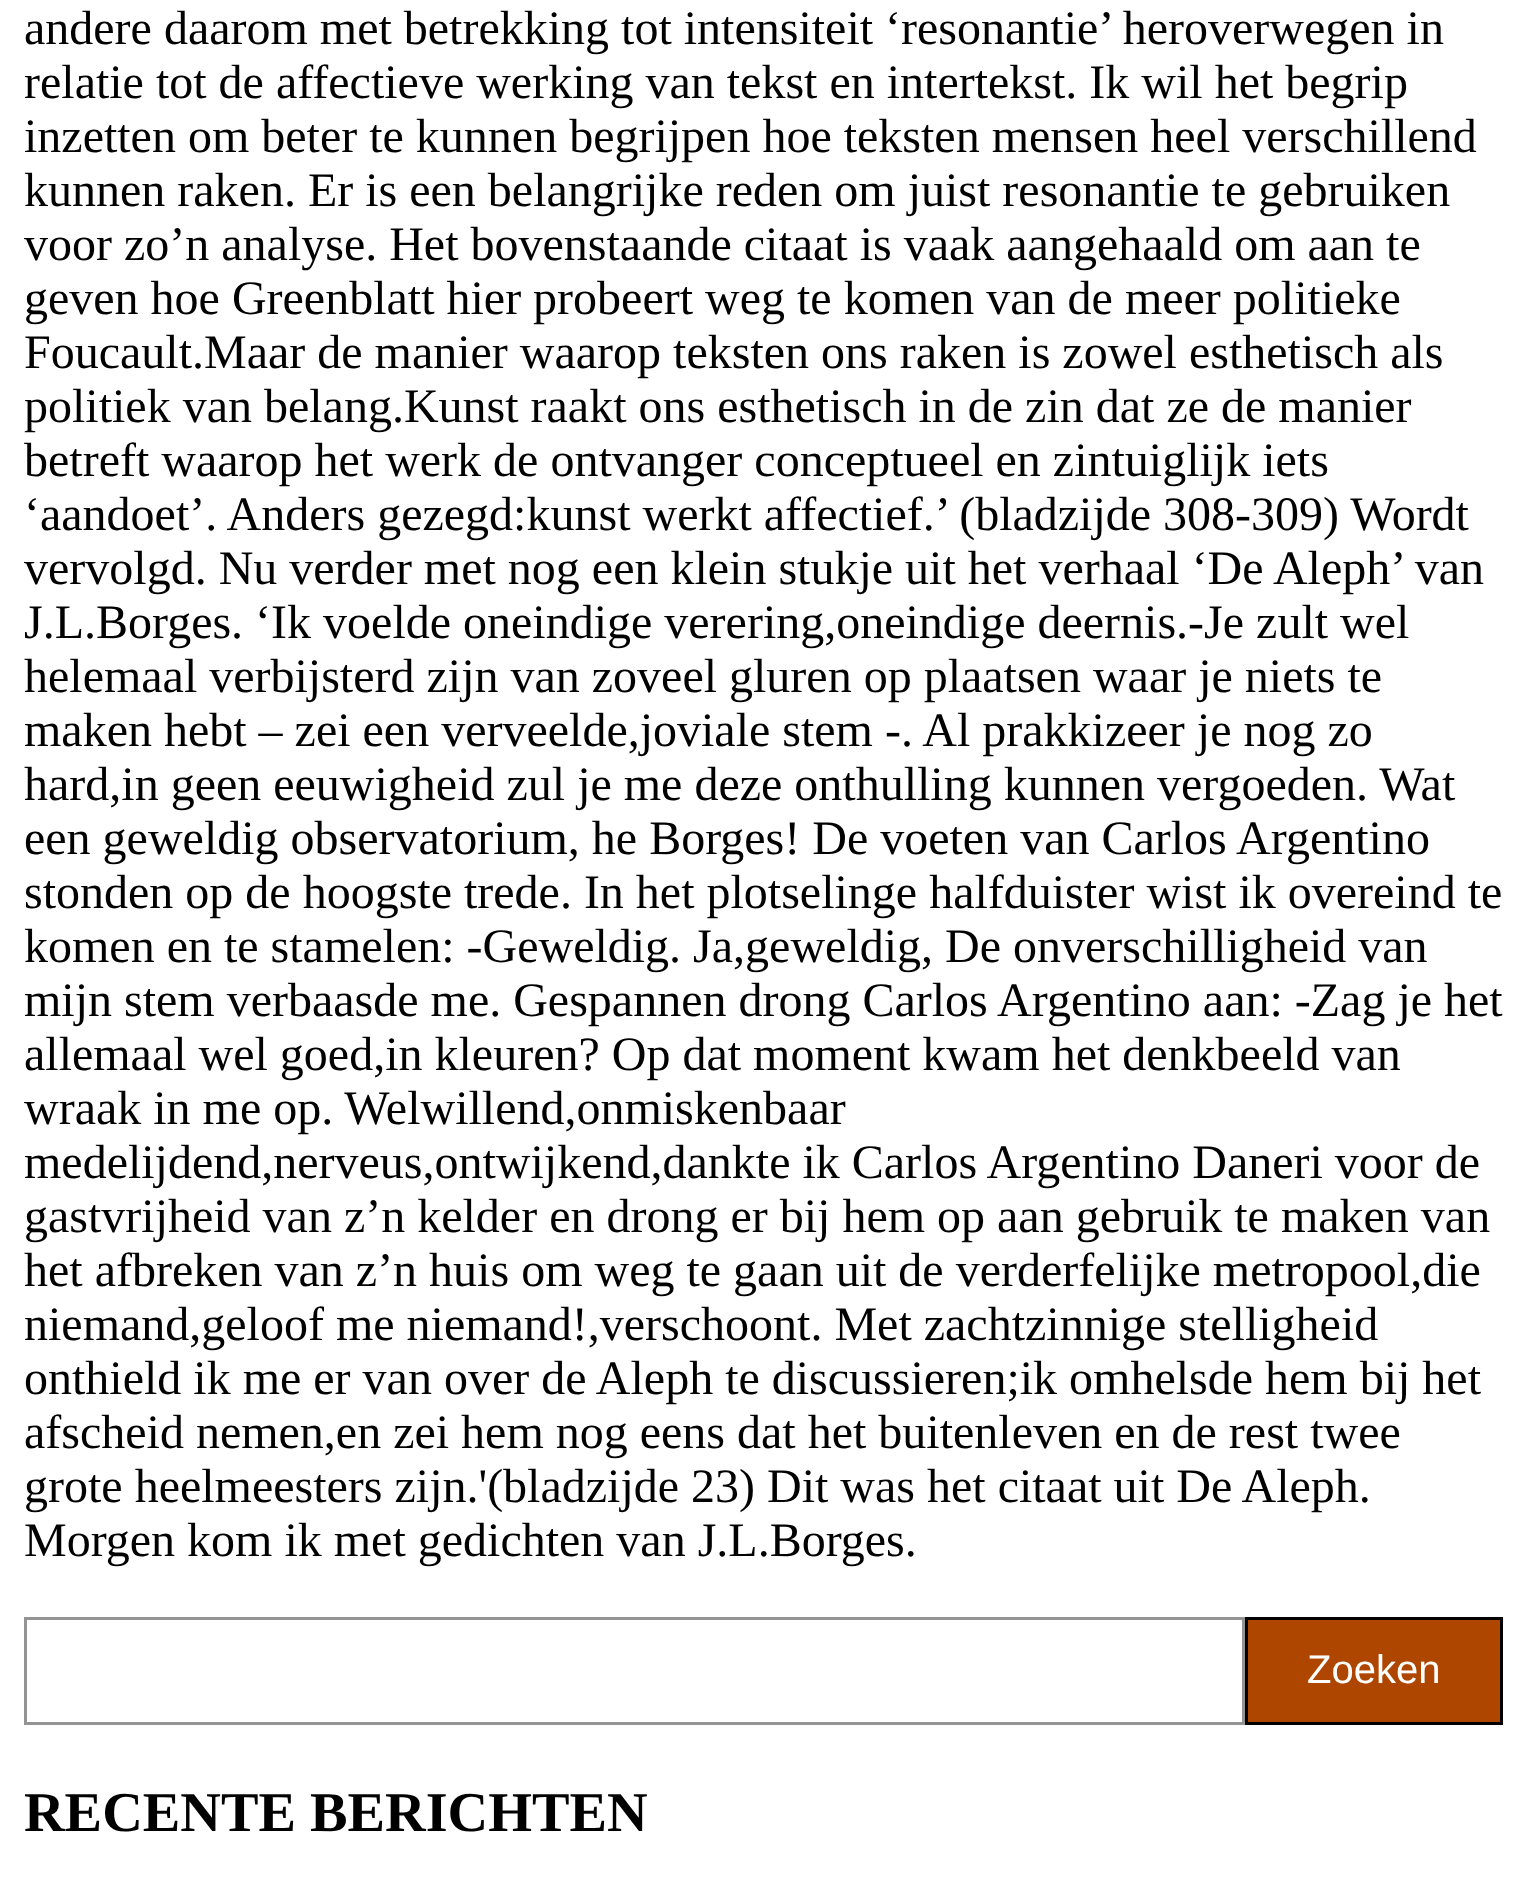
<svg xmlns="http://www.w3.org/2000/svg" width="1527" height="1893" viewBox="0 0 1527 1893">
  <style>
    .t1 { font: 48px Liberation Serif; fill: #000; }
    .t2 { font: 40px Liberation Sans; fill: #fff; }
    .t3 { font: bold 56.25px Liberation Serif; fill: #000; }
  </style>
  <rect width="100%" height="100%" fill="#fff"/>
  <text x="24" y="44" class="t1">andere daarom met betrekking tot intensiteit ‘resonantie’ heroverwegen in</text>
  <text x="24" y="98" class="t1">relatie tot de affectieve werking van tekst en intertekst. Ik wil het begrip</text>
  <text x="24" y="152" class="t1">inzetten om beter te kunnen begrijpen hoe teksten mensen heel verschillend</text>
  <text x="24" y="206" class="t1">kunnen raken. Er is een belangrijke reden om juist resonantie te gebruiken</text>
  <text x="24" y="260" class="t1">voor zo’n analyse. Het bovenstaande citaat is vaak aangehaald om aan te</text>
  <text x="24" y="314" class="t1">geven hoe Greenblatt hier probeert weg te komen van de meer politieke</text>
  <text x="24" y="368" class="t1">Foucault.Maar de manier waarop teksten ons raken is zowel esthetisch als</text>
  <text x="24" y="422" class="t1">politiek van belang.Kunst raakt ons esthetisch in de zin dat ze de manier</text>
  <text x="24" y="476" class="t1">betreft waarop het werk de ontvanger conceptueel en zintuiglijk iets</text>
  <text x="24" y="530" class="t1">‘aandoet’. Anders gezegd:kunst werkt affectief.’ (bladzijde 308-309) Wordt</text>
  <text x="24" y="584" class="t1">vervolgd. Nu verder met nog een klein stukje uit het verhaal ‘De Aleph’ van</text>
  <text x="24" y="638" class="t1">J.L.Borges. ‘Ik voelde oneindige verering,oneindige deernis.-Je zult wel</text>
  <text x="24" y="692" class="t1">helemaal verbijsterd zijn van zoveel gluren op plaatsen waar je niets te</text>
  <text x="24" y="746" class="t1">maken hebt – zei een verveelde,joviale stem -. Al prakkizeer je nog zo</text>
  <text x="24" y="800" class="t1">hard,in geen eeuwigheid zul je me deze onthulling kunnen vergoeden. Wat</text>
  <text x="24" y="854" class="t1">een geweldig observatorium, he Borges! De voeten van Carlos Argentino</text>
  <text x="24" y="908" class="t1">stonden op de hoogste trede. In het plotselinge halfduister wist ik overeind te</text>
  <text x="24" y="962" class="t1">komen en te stamelen: -Geweldig. Ja,geweldig, De onverschilligheid van</text>
  <text x="24" y="1016" class="t1">mijn stem verbaasde me. Gespannen drong Carlos Argentino aan: -Zag je het</text>
  <text x="24" y="1070" class="t1">allemaal wel goed,in kleuren? Op dat moment kwam het denkbeeld van</text>
  <text x="24" y="1124" class="t1">wraak in me op. Welwillend,onmiskenbaar</text>
  <text x="24" y="1178" class="t1">medelijdend,nerveus,ontwijkend,dankte ik Carlos Argentino Daneri voor de</text>
  <text x="24" y="1232" class="t1">gastvrijheid van z’n kelder en drong er bij hem op aan gebruik te maken van</text>
  <text x="24" y="1286" class="t1">het afbreken van z’n huis om weg te gaan uit de verderfelijke metropool,die</text>
  <text x="24" y="1340" class="t1">niemand,geloof me niemand!,verschoont. Met zachtzinnige stelligheid</text>
  <text x="24" y="1394" class="t1">onthield ik me er van over de Aleph te discussieren;ik omhelsde hem bij het</text>
  <text x="24" y="1448" class="t1">afscheid nemen,en zei hem nog eens dat het buitenleven en de rest twee</text>
  <text x="24" y="1502" class="t1">grote heelmeesters zijn.'(bladzijde 23) Dit was het citaat uit De Aleph.</text>
  <text x="24" y="1556" class="t1">Morgen kom ik met gedichten van J.L.Borges.</text>
  <rect x="25.5" y="1618.5" width="1218" height="105" fill="none" stroke="#949494" stroke-width="3"/>
  <rect x="1246.5" y="1618.5" width="255" height="105" fill="#ae4600" stroke="#000" stroke-width="3"/>
  <text x="1307" y="1683" class="t2">Zoeken</text>
  <text x="24" y="1831" class="t3">RECENTE BERICHTEN</text>
</svg>
